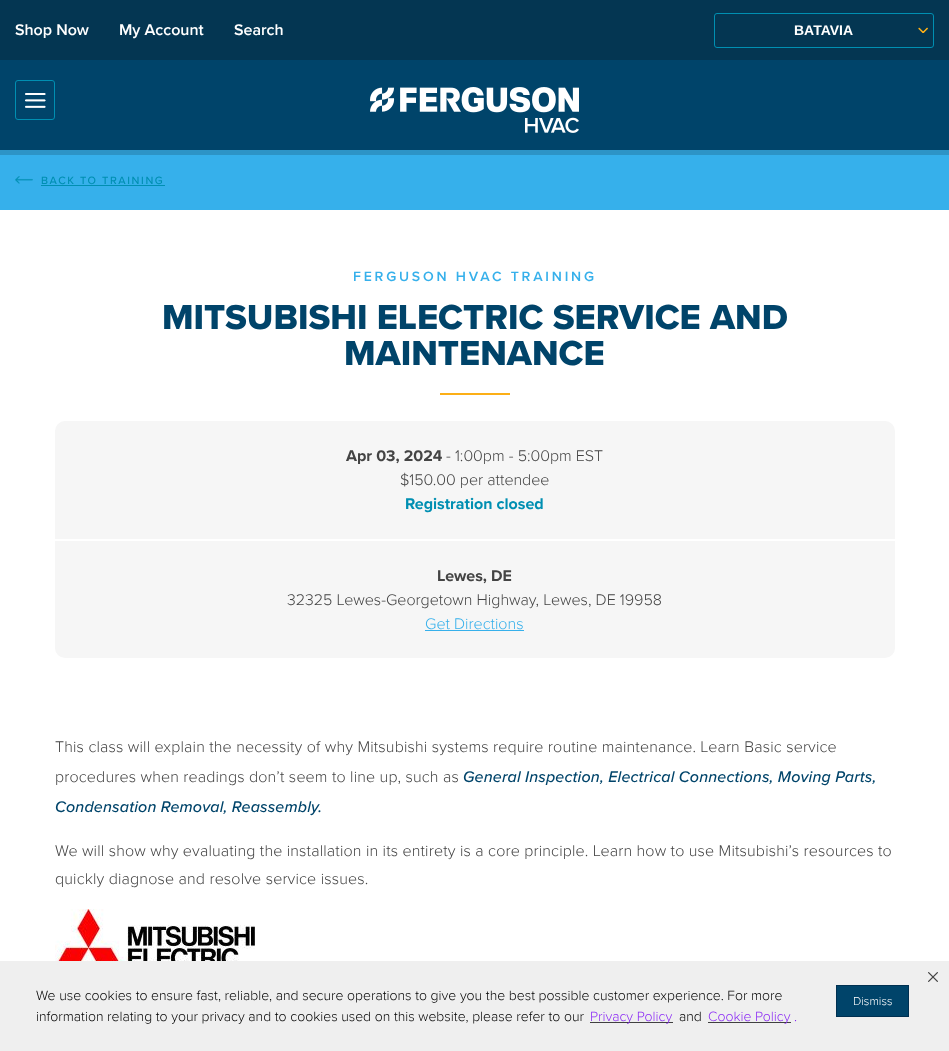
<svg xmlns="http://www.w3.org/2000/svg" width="949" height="1051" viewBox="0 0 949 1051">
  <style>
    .t1 { font: 600 16px Proxima Nova; fill: #fff; }
    .t2 { font: bold 14px Liberation Sans; fill: #fff; }
    .t3 { font: 500 11px Proxima Nova; letter-spacing: 1.6px; fill: #008fb2; }
    .t4 { font: 600 14px Proxima Nova; letter-spacing: 2.8px; fill: #36b0eb; }
    .t5 { font: 800 36px Proxima Nova; fill: #00446a; }
    .t6 { font: bold 16px Proxima Nova; fill: #444; }
    .t7 { font: 300 16px Proxima Nova; fill: #444; }
    .t8 { font: bold 16px Proxima Nova; fill: #008fb2; }
    .t9 { font: 300 16px Proxima Nova; fill: #36b0eb; }
    .t10 { font: 300 16px Proxima Nova; letter-spacing: 0.16px; fill: #444; }
    .t11 { font: italic 500 16px Proxima Nova; letter-spacing: 0.16px; fill: #00446a; }
    .t12 { font: 300 14px Proxima Nova; fill: #000; }
    .t13 { font: 300 14px Proxima Nova; fill: #8b2af5; }
    .t14 { font: 300 12px Proxima Nova; fill: #fff; }
  </style>
  <rect width="100%" height="100%" fill="#fff"/>
  <rect x="0" y="150" width="949" height="5" fill="#2d94c6"/>
  <rect x="0" y="60" width="949" height="90" fill="#00446a"/>
  <rect x="0" y="0" width="949" height="60" fill="#043652"/>
  <text x="15" y="35" class="t1">Shop Now</text>
  <text x="119" y="35" class="t1">My Account</text>
  <text x="234" y="35" class="t1">Search</text>
  <rect x="15.5" y="80.5" width="39" height="39" rx="2.5" fill="none" stroke="#008fb2"/>
  <image x="25" y="93" width="21" height="15" href="images/1.png"/>
  <image x="370" y="87" width="209" height="46" href="images/2.png"/>
  <rect x="714.5" y="13.5" width="219" height="34" rx="2.5" fill="none" stroke="#008fb2"/>
  <text x="794" y="35" class="t2">BATAVIA</text>
  <image x="918" y="27" width="10" height="6" href="images/3.png"/>
  <rect x="0" y="155" width="949" height="55" fill="#36b0eb"/>
  <image x="15" y="176" width="18" height="8" href="images/4.png"/>
  <text x="41" y="184" class="t3">BACK TO TRAINING</text>
  <rect x="41" y="185" width="124" height="1" fill="#008fb2"/>
  <text x="353" y="281" class="t4">FERGUSON HVAC TRAINING</text>
  <text x="162" y="329" class="t5">MITSUBISHI ELECTRIC SERVICE AND</text>
  <text x="344" y="365" class="t5">MAINTENANCE</text>
  <rect x="440" y="393" width="70" height="2" fill="#fcaf17"/>
  <rect x="55" y="421" width="840" height="237" rx="10" fill="#f6f6f6"/>
  <rect x="55" y="539" width="840" height="2" fill="#fff"/>
  <text x="346" y="461" class="t6">Apr 03, 2024</text>
  <text x="446" y="461" class="t7">- 1:00pm - 5:00pm EST</text>
  <text x="400" y="485" class="t7">$150.00 per attendee</text>
  <text x="405" y="509" class="t8">Registration closed</text>
  <text x="437" y="581" class="t6">Lewes, DE</text>
  <text x="287" y="605" class="t7">32325 Lewes-Georgetown Highway, Lewes, DE 19958</text>
  <text x="425" y="629" class="t9">Get Directions</text>
  <rect x="425" y="630" width="99" height="1" fill="#36b0eb"/>
  <text x="55" y="752" class="t10">This class will explain the necessity of why Mitsubishi systems require routine maintenance. Learn Basic service</text>
  <text x="55" y="782" class="t10">procedures when readings don’t seem to line up, such as</text>
  <text x="463" y="782" class="t11">General Inspection, Electrical Connections, Moving Parts,</text>
  <text x="55" y="812" class="t11">Condensation Removal, Reassembly.</text>
  <text x="55" y="856" class="t10">We will show why evaluating the installation in its entirety is a core principle. Learn how to use Mitsubishi’s resources to</text>
  <text x="55" y="884" class="t10">quickly diagnose and resolve service issues.</text>
  <image x="55" y="909" width="200" height="52" href="images/5.png"/>
  <rect x="0" y="961" width="949" height="90" fill="#efefef"/>
  <text x="36" y="1000" class="t12">We use cookies to ensure fast, reliable, and secure operations to give you the best possible customer experience. For more</text>
  <text x="36" y="1021" class="t12">information relating to your privacy and to cookies used on this website, please refer to our</text>
  <rect x="590" y="1022" width="83" height="1" fill="#404040"/>
  <text x="590" y="1021" class="t13">Privacy Policy</text>
  <text x="679" y="1021" class="t12">and</text>
  <rect x="708" y="1022" width="83" height="1" fill="#404040"/>
  <text x="708" y="1021" class="t13">Cookie Policy</text>
  <text x="794" y="1021" class="t13">.</text>
  <image x="928" y="972" width="10" height="10" href="images/6.png"/>
  <rect x="836.5" y="985.5" width="72" height="31" fill="#00446a" stroke="#003051"/>
  <text x="853" y="1005" class="t14">Dismiss</text>
</svg>
